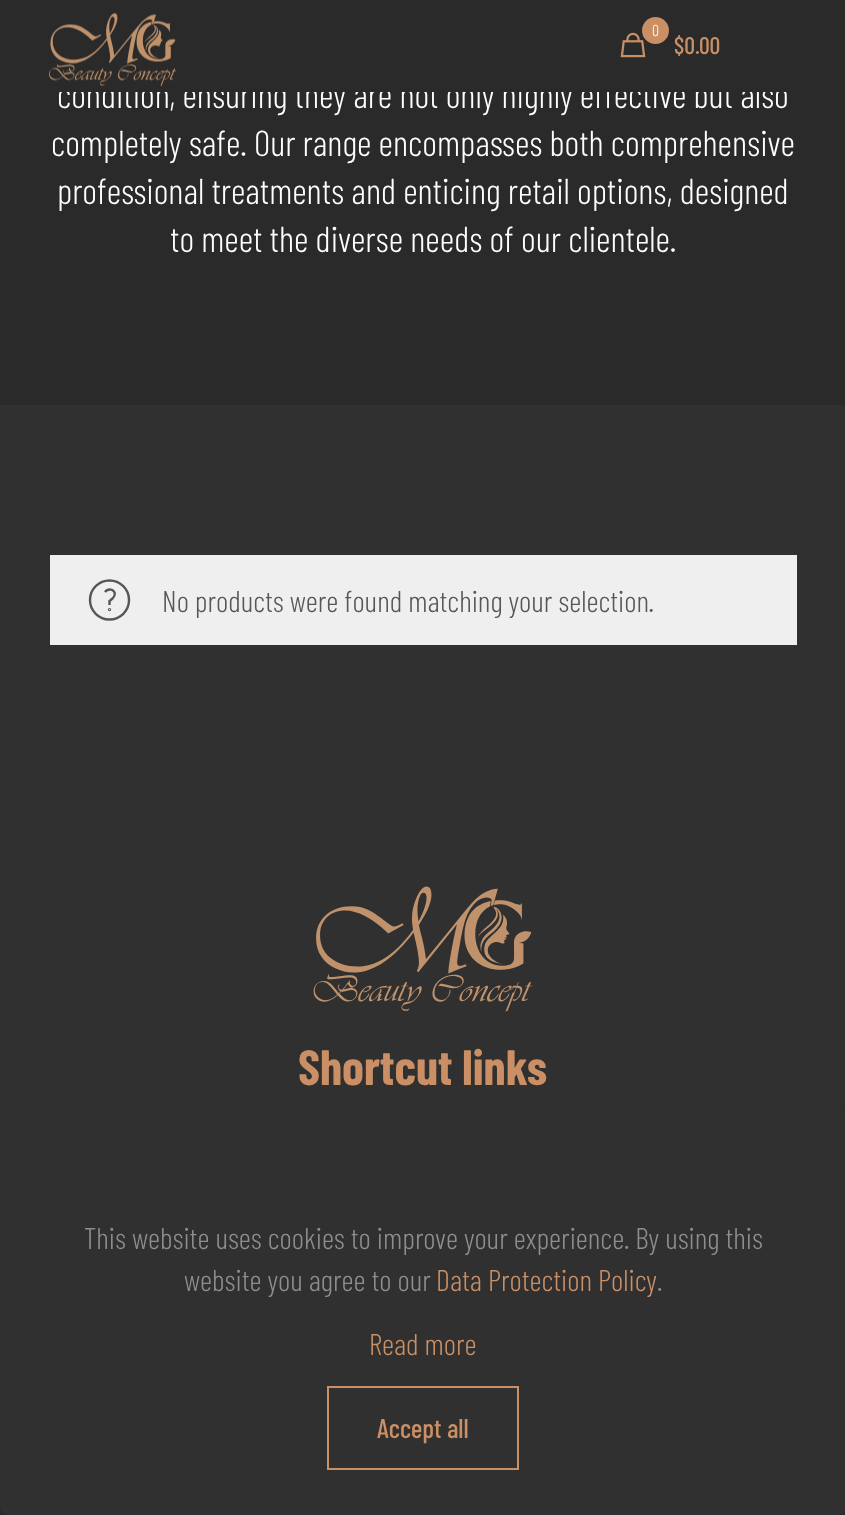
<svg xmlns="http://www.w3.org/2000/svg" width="845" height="1515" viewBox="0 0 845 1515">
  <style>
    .t1 { font: 300 36px Barlow Condensed; fill: #fdfffc; }
    .t2 { font: 300 16px Barlow Condensed; fill: #fdfffc; }
    .t3 { font: 500 24px Barlow Condensed; fill: #ca8f65; }
    .t4 { font: 300 30px Barlow Condensed; fill: #57575b; }
    .t5 { font: bold 49.5px Barlow Condensed; fill: #ca8f65; }
    .t6 { font: 300 30px Barlow Condensed; fill: #8e8e8e; }
    .t7 { font: 300 30px Barlow Condensed; fill: #ca8f65; }
    .t8 { font: 500 27px Barlow Condensed; fill: #ca8f65; }
  </style>
  <rect width="100%" height="100%" fill="#303030"/>
  <rect x="0" y="92" width="845" height="313" fill="#2a2a2a"/>
  <text x="57" y="108" class="t1">condition, ensuring they are not only highly effective but also</text>
  <rect x="0" y="0" width="845" height="92" fill="#2a2a2a"/>
  <image x="49" y="12" width="127" height="75" href="images/1.png"/>
  <image x="620" y="32" width="26" height="26" href="images/2.png"/>
  <circle cx="655.5" cy="30.5" r="13.5" fill="#ca8f65"/>
  <text x="652" y="36" class="t2">0</text>
  <text x="674" y="54" class="t3">$0.00</text>
  <text x="51" y="156" class="t1">completely safe. Our range encompasses both comprehensive</text>
  <text x="57" y="204" class="t1">professional treatments and enticing retail options, designed</text>
  <text x="170" y="252" class="t1">to meet the diverse needs of our clientele.</text>
  <rect x="50" y="555" width="747" height="90" fill="#efefef"/>
  <circle cx="109.5" cy="600" r="19.5" fill="none" stroke="#57575b" stroke-width="2.4"/>
  <path d="M105 592C106 590.5 108 589.5 110 589.5C111.5 589.5 113 590 114 591.5C115.5 593.5 114.5 596.5 112.5 598.5L109.5 601V605" fill="none" stroke="#57575b" stroke-width="2.4"/>
  <circle cx="109.5" cy="609.6" r="0.5" fill="none" stroke="#57575b" stroke-width="2.4"/>
  <text x="162" y="612" class="t4">No products were found matching your selection.</text>
  <image x="313" y="886" width="220" height="126" href="images/3.png"/>
  <text x="298" y="1085" class="t5">Shortcut links</text>
  <rect x="0" y="1507" width="845" height="8" fill="#2a2a2a"/>
  <rect x="0" y="1109" width="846" height="406" rx="8" fill="#303030"/>
  <text x="84" y="1249" class="t6">This website uses cookies to improve your experience. By using this</text>
  <text x="184" y="1291" class="t6">website you agree to our</text>
  <text x="436" y="1291" class="t7">Data Protection Policy</text>
  <text x="657" y="1291" class="t6">.</text>
  <text x="369" y="1355" class="t7">Read more</text>
  <rect x="328" y="1387" width="190" height="82" fill="none" stroke="#ca8f65" stroke-width="2"/>
  <text x="377" y="1438" class="t8">Accept all</text>
</svg>
